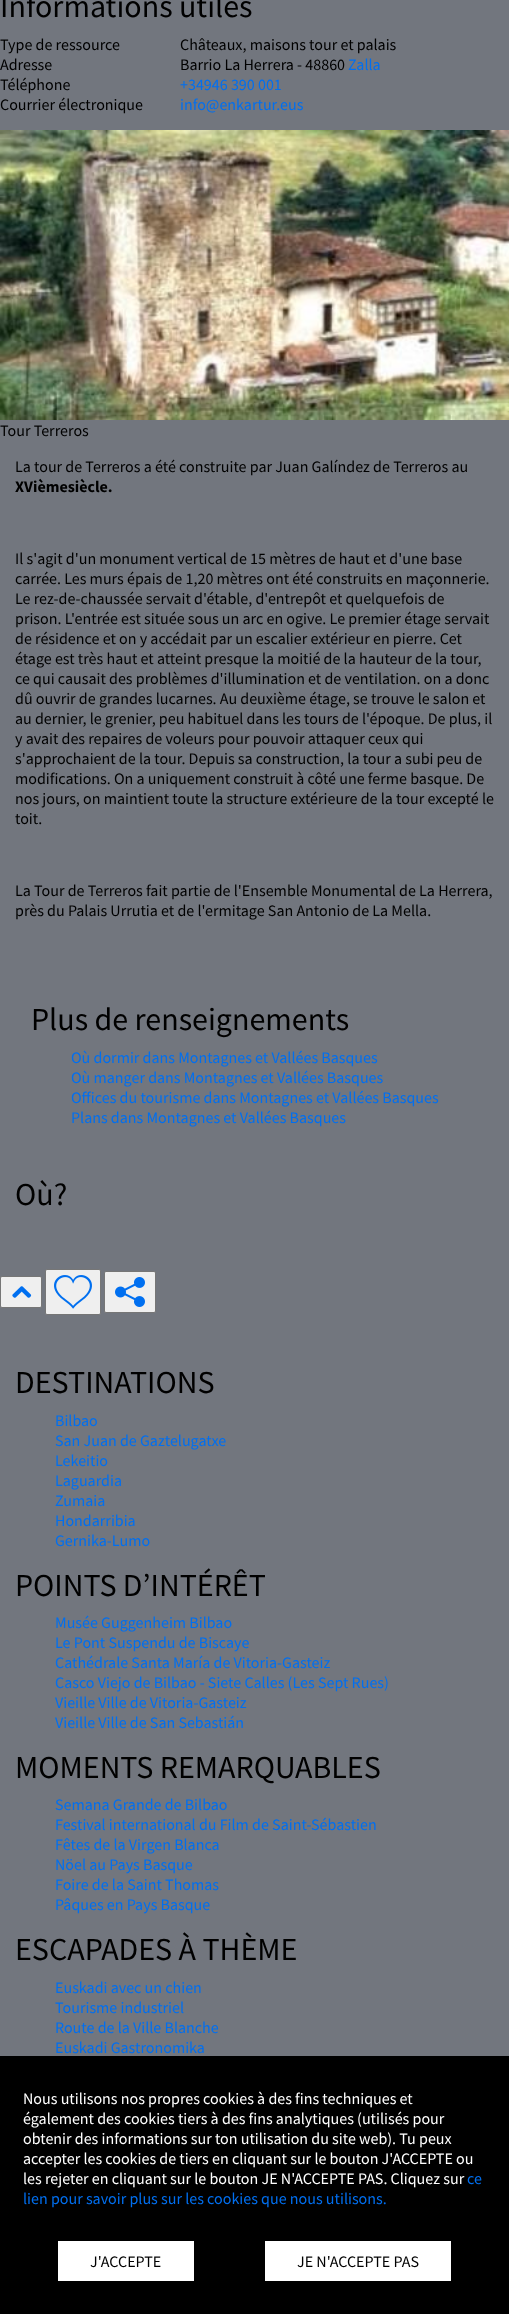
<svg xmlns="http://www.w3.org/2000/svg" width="509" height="2314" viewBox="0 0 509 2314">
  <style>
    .t1 { font: 32px Source Sans Pro; fill: #000; }
    .t2 { font: 16px Source Sans Pro; fill: #000; }
    .t3 { font: 16px Source Sans Pro; fill: #006ff0; }
    .t4 { font: bold 16px Source Sans Pro; fill: #000; }
    .t5 { font: 16px Source Sans Pro; fill: #fff; }
  </style>
  <rect width="100%" height="100%" fill="#72767e"/>
  <text x="0" y="17" class="t1">Informations utiles</text>
  <text x="0" y="50" class="t2">Type de ressource</text>
  <text x="180" y="50" class="t2">Châteaux, maisons tour et palais</text>
  <text x="0" y="70" class="t2">Adresse</text>
  <text x="180" y="70" class="t2">Barrio La Herrera - 48860</text>
  <text x="348" y="70" class="t3">Zalla</text>
  <text x="0" y="90" class="t2">Téléphone</text>
  <text x="180" y="90" class="t3">+34946 390 001</text>
  <text x="0" y="110" class="t2">Courrier électronique</text>
  <text x="180" y="110" class="t3">info@enkartur.eus</text>
  <image x="0" y="130" width="509" height="290" href="images/1.png"/>
  <text x="0" y="436" class="t2">Tour Terreros</text>
  <text x="15" y="472" class="t2">La tour de Terreros a été construite par Juan Galíndez de Terreros au</text>
  <text x="15" y="492" class="t4">XVièmesiècle.</text>
  <text x="15" y="564" class="t2">Il s'agit d'un monument vertical de 15 mètres de haut et d'une base</text>
  <text x="15" y="584" class="t2">carrée. Les murs épais de 1,20 mètres ont été construits en maçonnerie.</text>
  <text x="15" y="604" class="t2">Le rez-de-chaussée servait d'étable, d'entrepôt et quelquefois de</text>
  <text x="15" y="624" class="t2">prison. L'entrée est située sous un arc en ogive. Le premier étage servait</text>
  <text x="15" y="644" class="t2">de résidence et on y accédait par un escalier extérieur en pierre. Cet</text>
  <text x="15" y="664" class="t2">étage est très haut et atteint presque la moitié de la hauteur de la tour,</text>
  <text x="15" y="684" class="t2">ce qui causait des problèmes d'illumination et de ventilation. on a donc</text>
  <text x="15" y="704" class="t2">dû ouvrir de grandes lucarnes. Au deuxième étage, se trouve le salon et</text>
  <text x="15" y="724" class="t2">au dernier, le grenier, peu habituel dans les tours de l'époque. De plus, il</text>
  <text x="15" y="744" class="t2">y avait des repaires de voleurs pour pouvoir attaquer ceux qui</text>
  <text x="15" y="764" class="t2">s'approchaient de la tour. Depuis sa construction, la tour a subi peu de</text>
  <text x="15" y="784" class="t2">modifications. On a uniquement construit à côté une ferme basque. De</text>
  <text x="15" y="804" class="t2">nos jours, on maintient toute la structure extérieure de la tour excepté le</text>
  <text x="15" y="824" class="t2">toit.</text>
  <text x="15" y="896" class="t2">La Tour de Terreros fait partie de l'Ensemble Monumental de La Herrera,</text>
  <text x="15" y="916" class="t2">près du Palais Urrutia et de l'ermitage San Antonio de La Mella.</text>
  <text x="31" y="1030" class="t1">Plus de renseignements</text>
  <text x="71" y="1063" class="t3">Où dormir dans Montagnes et Vallées Basques</text>
  <text x="71" y="1083" class="t3">Où manger dans Montagnes et Vallées Basques</text>
  <text x="71" y="1103" class="t3">Offices du tourisme dans Montagnes et Vallées Basques</text>
  <text x="71" y="1123" class="t3">Plans dans Montagnes et Vallées Basques</text>
  <text x="15" y="1205" class="t1">Où?</text>
  <rect x="0.5" y="1276.5" width="41" height="31" rx="1.5" fill="#efefef" stroke="#767676"/>
  <image x="12" y="1286" width="20" height="12" href="images/2.png"/>
  <rect x="45.5" y="1269.5" width="55" height="45" rx="1.5" fill="#efefef" stroke="#767676"/>
  <image x="54" y="1275" width="38" height="34" href="images/3.png"/>
  <rect x="104.5" y="1271.5" width="51" height="41" rx="1.5" fill="#efefef" stroke="#767676"/>
  <image x="115" y="1277" width="30" height="30" href="images/4.png"/>
  <text x="15" y="1393" class="t1">DESTINATIONS</text>
  <text x="55" y="1426" class="t3">Bilbao</text>
  <text x="55" y="1446" class="t3">San Juan de Gaztelugatxe</text>
  <text x="55" y="1466" class="t3">Lekeitio</text>
  <text x="55" y="1486" class="t3">Laguardia</text>
  <text x="55" y="1506" class="t3">Zumaia</text>
  <text x="55" y="1526" class="t3">Hondarribia</text>
  <text x="55" y="1546" class="t3">Gernika-Lumo</text>
  <text x="15" y="1596" class="t1">POINTS D’INTÉRÊT</text>
  <text x="55" y="1628" class="t3">Musée Guggenheim Bilbao</text>
  <text x="55" y="1648" class="t3">Le Pont Suspendu de Biscaye</text>
  <text x="55" y="1668" class="t3">Cathédrale Santa María de Vitoria-Gasteiz</text>
  <text x="55" y="1688" class="t3">Casco Viejo de Bilbao - Siete Calles (Les Sept Rues)</text>
  <text x="55" y="1708" class="t3">Vieille Ville de Vitoria-Gasteiz</text>
  <text x="55" y="1728" class="t3">Vieille Ville de San Sebastián</text>
  <text x="15" y="1778" class="t1">MOMENTS REMARQUABLES</text>
  <text x="55" y="1810" class="t3">Semana Grande de Bilbao</text>
  <text x="55" y="1830" class="t3">Festival international du Film de Saint-Sébastien</text>
  <text x="55" y="1850" class="t3">Fêtes de la Virgen Blanca</text>
  <text x="55" y="1870" class="t3">Nöel au Pays Basque</text>
  <text x="55" y="1890" class="t3">Foire de la Saint Thomas</text>
  <text x="55" y="1910" class="t3">Pâques en Pays Basque</text>
  <text x="15" y="1960" class="t1">ESCAPADES À THÈME</text>
  <text x="55" y="1993" class="t3">Euskadi avec un chien</text>
  <text x="55" y="2013" class="t3">Tourisme industriel</text>
  <text x="55" y="2033" class="t3">Route de la Ville Blanche</text>
  <text x="55" y="2053" class="t3">Euskadi Gastronomika</text>
  <rect x="0" y="2056" width="509" height="258" fill="#000"/>
  <text x="23" y="2104" class="t5">Nous utilisons nos propres cookies à des fins techniques et</text>
  <text x="23" y="2124" class="t5">également des cookies tiers à des fins analytiques (utilisés pour</text>
  <text x="23" y="2144" class="t5">obtenir des informations sur ton utilisation du site web). Tu peux</text>
  <text x="23" y="2164" class="t5">accepter les cookies de tiers en cliquant sur le bouton J'ACCEPTE ou</text>
  <text x="23" y="2184" class="t5">les rejeter en cliquant sur le bouton JE N'ACCEPTE PAS. Cliquez sur</text>
  <text x="467" y="2184" class="t3">ce</text>
  <text x="23" y="2204" class="t3">lien pour savoir plus sur les cookies que nous utilisons.</text>
  <rect x="58" y="2241" width="136" height="40" fill="#fff"/>
  <text x="90" y="2267" class="t2">J'ACCEPTE</text>
  <rect x="265" y="2241" width="186" height="40" fill="#fff"/>
  <text x="297" y="2267" class="t2">JE N'ACCEPTE PAS</text>
</svg>
